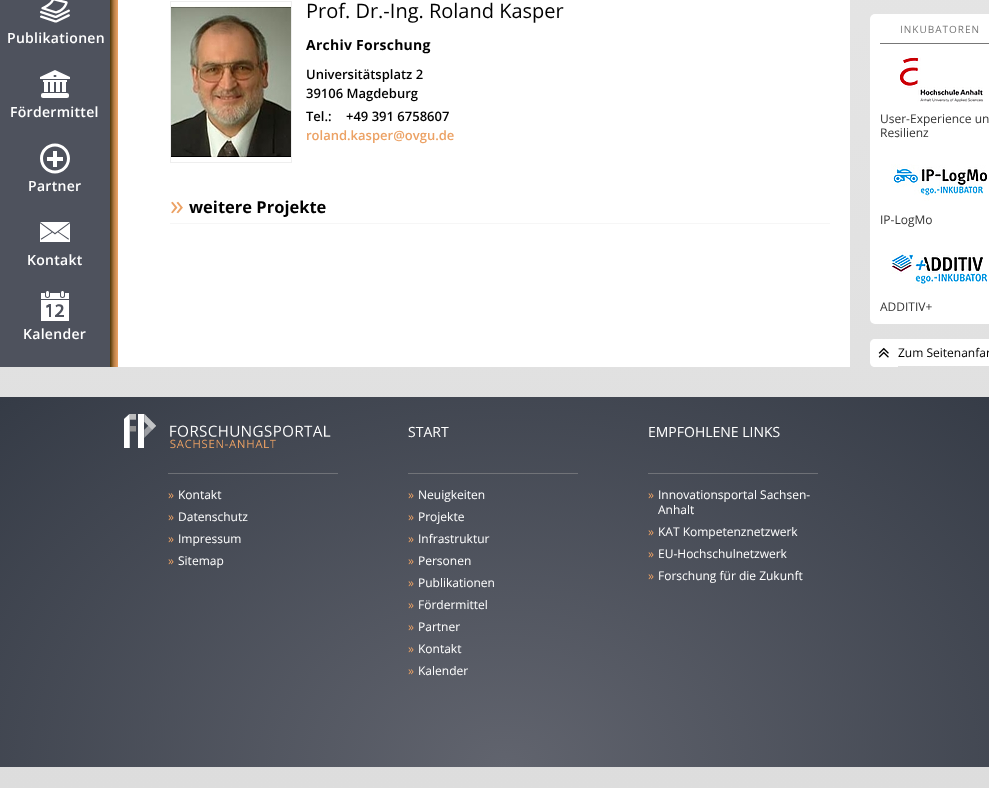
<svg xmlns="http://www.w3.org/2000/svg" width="989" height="788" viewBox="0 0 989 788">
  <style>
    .t1 { font: 600 14px Open Sans; letter-spacing: 0.3px; fill: #fff; }
    .t2 { font: 20px Open Sans; fill: #000; }
    .t3 { font: bold 14px Open Sans; letter-spacing: 0.25px; fill: #000; }
    .t4 { font: 600 13px Open Sans; fill: #000; }
    .t5 { font: 600 13px Open Sans; fill: #eca265; }
    .t6 { font: 28px Open Sans; fill: #eca265; }
    .t7 { font: bold 16.5px Open Sans; fill: #000; }
    .t8 { font: 10px Open Sans; letter-spacing: 1px; fill: #777; }
    .t9 { font: 12px Open Sans; fill: #333; }
    .t10 { font: 12px Open Sans; fill: #000; }
    .t11 { font: 12px Open Sans; fill: #eca265; }
    .t12 { font: 12px Open Sans; fill: #fff; }
    .t13 { font: 14px Open Sans; fill: #fff; }
  </style>
  <defs>
    <linearGradient id="g1" gradientUnits="userSpaceOnUse" x1="494" y1="-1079" x2="495" y2="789"><stop offset="0" stop-color="#eee"/><stop offset="1" stop-color="#ddd"/></linearGradient>
    <radialGradient id="g2" gradientUnits="userSpaceOnUse" cx="0" cy="0" r="1" gradientTransform="matrix(714 0 0 523 505 767)"><stop offset="0" stop-color="#61646e"/><stop offset="1" stop-color="#353b46"/></radialGradient>
    <radialGradient id="g3" gradientUnits="userSpaceOnUse" cx="0" cy="0" r="1" gradientTransform="matrix(714 0 0 523 505 767)"><stop offset="0" stop-color="#7d7f84"/><stop offset="1" stop-color="#676a70"/></radialGradient>
  </defs>
  <rect width="100%" height="100%" fill="#fff"/>
  <rect x="0" y="0" width="989" height="788" fill="url(#g1)"/>
  <rect x="0" y="0" width="110" height="367" fill="#4e525d"/>
  <image x="110" y="0" width="8" height="367" href="images/1.png"/>
  <image x="40" y="0" width="30" height="23" href="images/2.png"/>
  <text x="7" y="43" class="t1">Publikationen</text>
  <image x="40" y="70" width="30" height="28" href="images/3.png"/>
  <text x="10" y="117" class="t1">Fördermittel</text>
  <image x="40" y="143" width="30" height="31" href="images/4.png"/>
  <text x="28" y="191" class="t1">Partner</text>
  <image x="40" y="222" width="30" height="20" href="images/5.png"/>
  <text x="27" y="265" class="t1">Kontakt</text>
  <image x="41" y="291" width="28" height="30" href="images/6.png"/>
  <text x="23" y="339" class="t1">Kalender</text>
  <rect x="118" y="0" width="732" height="367" fill="#fff"/>
  <rect x="170.5" y="1.5" width="121" height="161" fill="none" stroke="#eee"/>
  <image x="171" y="6" width="120" height="152" href="images/7.png"/>
  <text x="306" y="18" class="t2">Prof. Dr.-Ing. Roland Kasper</text>
  <text x="306" y="50" class="t3">Archiv Forschung</text>
  <text x="306" y="79" class="t4">Universitätsplatz 2</text>
  <text x="306" y="98" class="t4">39106 Magdeburg</text>
  <text x="306" y="121" class="t4">Tel.:</text>
  <text x="346" y="121" class="t4">+49 391 6758607</text>
  <text x="306" y="140" class="t5">roland.kasper@ovgu.de</text>
  <rect x="170" y="223" width="660" height="1" fill="#f6f6f6"/>
  <text x="170" y="215" class="t6">»</text>
  <text x="189" y="213" class="t7">weitere Projekte</text>
  <rect x="870" y="14" width="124" height="310" rx="5" fill="#fff"/>
  <rect x="880" y="43" width="109" height="1" fill="#777"/>
  <text x="900" y="33" class="t8">INKUBATOREN</text>
  <image x="900" y="57" width="83" height="45" href="images/8.png"/>
  <text x="880" y="123" class="t9">User-Experience un</text>
  <text x="880" y="137" class="t9">Resilienz</text>
  <image x="891" y="164" width="96" height="37" href="images/9.png"/>
  <text x="880" y="224" class="t9">IP-LogMo</text>
  <image x="891" y="251" width="96" height="38" href="images/10.png"/>
  <text x="880" y="311" class="t9">ADDITIV+</text>
  <path d="M875 339H898V367H875C872 367 870 365 870 362V344C870 341 872 339 875 339Z" fill="#fff"/>
  <image x="878" y="347" width="11" height="11" href="images/11.png"/>
  <rect x="898" y="339" width="91" height="27" fill="#fff"/>
  <text x="898" y="357" class="t10">Zum Seitenanfan</text>
  <rect x="0" y="397" width="989" height="370" fill="url(#g2)"/>
  <rect x="648" y="473" width="170" height="1" fill="url(#g3)"/>
  <rect x="168" y="473" width="170" height="1" fill="url(#g3)"/>
  <image x="124" y="414" width="207" height="35" href="images/12.png"/>
  <text x="168" y="499" class="t11">»</text>
  <text x="178" y="499" class="t12">Kontakt</text>
  <text x="168" y="521" class="t11">»</text>
  <text x="178" y="521" class="t12">Datenschutz</text>
  <text x="168" y="543" class="t11">»</text>
  <text x="178" y="543" class="t12">Impressum</text>
  <text x="168" y="565" class="t11">»</text>
  <text x="178" y="565" class="t12">Sitemap</text>
  <text x="408" y="437" class="t13">START</text>
  <rect x="408" y="473" width="170" height="1" fill="#717378"/>
  <text x="408" y="499" class="t11">»</text>
  <text x="418" y="499" class="t12">Neuigkeiten</text>
  <text x="408" y="521" class="t11">»</text>
  <text x="418" y="521" class="t12">Projekte</text>
  <text x="408" y="543" class="t11">»</text>
  <text x="418" y="543" class="t12">Infrastruktur</text>
  <text x="408" y="565" class="t11">»</text>
  <text x="418" y="565" class="t12">Personen</text>
  <text x="408" y="587" class="t11">»</text>
  <text x="418" y="587" class="t12">Publikationen</text>
  <text x="408" y="609" class="t11">»</text>
  <text x="418" y="609" class="t12">Fördermittel</text>
  <text x="408" y="631" class="t11">»</text>
  <text x="418" y="631" class="t12">Partner</text>
  <text x="408" y="653" class="t11">»</text>
  <text x="418" y="653" class="t12">Kontakt</text>
  <text x="408" y="675" class="t11">»</text>
  <text x="418" y="675" class="t12">Kalender</text>
  <text x="648" y="437" class="t13">EMPFOHLENE LINKS</text>
  <text x="648" y="499" class="t11">»</text>
  <text x="658" y="499" class="t12">Innovationsportal Sachsen-</text>
  <text x="658" y="514" class="t12">Anhalt</text>
  <text x="648" y="536" class="t11">»</text>
  <text x="658" y="536" class="t12">KAT Kompetenznetzwerk</text>
  <text x="648" y="558" class="t11">»</text>
  <text x="658" y="558" class="t12">EU-Hochschulnetzwerk</text>
  <text x="648" y="580" class="t11">»</text>
  <text x="658" y="580" class="t12">Forschung für die Zukunft</text>
</svg>
